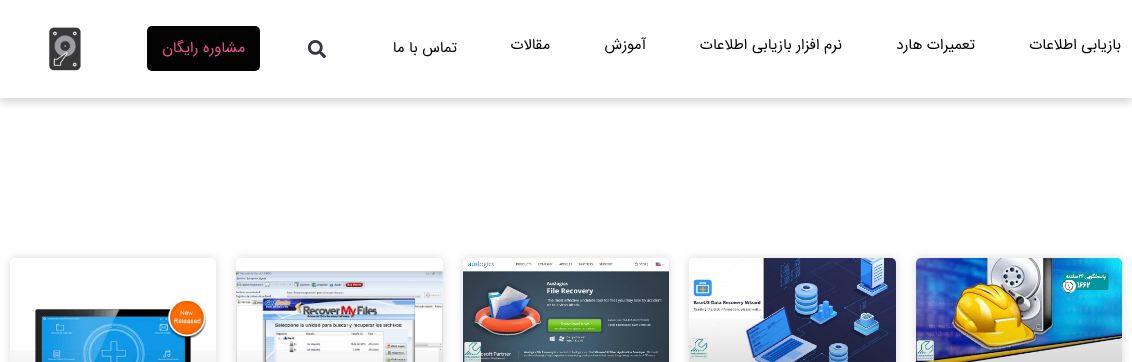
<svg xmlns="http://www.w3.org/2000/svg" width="1132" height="362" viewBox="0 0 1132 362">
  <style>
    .t1 { font: 15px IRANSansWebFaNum; direction: rtl; fill: #000; }
    .t2 { font: 15px IRANSansWebFaNum; direction: rtl; fill: #e95095; }
  </style>
  <defs>
    <clipPath id="clip1"><rect x="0" y="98" width="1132" height="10"/></clipPath>
    <linearGradient id="g1" gradientUnits="userSpaceOnUse" x1="1019" y1="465" x2="1019" y2="258"><stop offset="0" stop-color="#000" stop-opacity="0.35"/><stop offset="0.75" stop-color="#000" stop-opacity="0"/></linearGradient>
    <linearGradient id="g2" gradientUnits="userSpaceOnUse" x1="793" y1="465" x2="793" y2="258"><stop offset="0" stop-color="#000" stop-opacity="0.35"/><stop offset="0.75" stop-color="#000" stop-opacity="0"/></linearGradient>
    <linearGradient id="g3" gradientUnits="userSpaceOnUse" x1="566" y1="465" x2="566" y2="258"><stop offset="0" stop-color="#000" stop-opacity="0.35"/><stop offset="0.75" stop-color="#000" stop-opacity="0"/></linearGradient>
    <linearGradient id="g4" gradientUnits="userSpaceOnUse" x1="340" y1="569" x2="340" y2="258"><stop offset="0" stop-color="#000" stop-opacity="0.35"/><stop offset="0.75" stop-color="#000" stop-opacity="0"/></linearGradient>
    <linearGradient id="g5" gradientUnits="userSpaceOnUse" x1="113" y1="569" x2="113" y2="258"><stop offset="0" stop-color="#000" stop-opacity="0.35"/><stop offset="0.75" stop-color="#000" stop-opacity="0"/></linearGradient>
  </defs>
  <rect width="100%" height="100%" fill="#fff"/>
  <g clip-path="url(#clip1)">
    <rect x="0" y="4" width="1132" height="98" fill="#0000002b" filter="blur(5px)"/>
  </g>
  <text x="1121" y="49" class="t1">بازیابی اطلاعات</text>
  <text x="975" y="49" class="t1">تعمیرات هارد</text>
  <text x="842" y="49" class="t1">نرم افزار بازیابی اطلاعات</text>
  <text x="646" y="49" class="t1">آموزش</text>
  <text x="550" y="49" class="t1">مقالات</text>
  <text x="457" y="52" class="t1">تماس با ما</text>
  <image x="307" y="40" width="19" height="19" href="images/1.png"/>
  <rect x="147" y="26" width="113" height="45" rx="5" fill="#030303"/>
  <text x="245" y="52" class="t2">مشاوره رایگان</text>
  <image x="49" y="27" width="32" height="44" href="images/2.png"/>
  <rect x="916" y="258" width="206" height="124" rx="5" fill="#00000026" filter="blur(5px)"/>
  <image x="916" y="258" width="206" height="104" href="images/3.png"/>
  <rect x="916" y="319" width="206" height="43" fill="url(#g1)"/>
  <rect x="689" y="258" width="207" height="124" rx="5" fill="#00000026" filter="blur(5px)"/>
  <rect x="689" y="258" width="207" height="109" rx="5" fill="#fff"/>
  <image x="690" y="258" width="206" height="104" href="images/4.png"/>
  <rect x="689" y="319" width="207" height="43" fill="url(#g2)"/>
  <rect x="463" y="258" width="206" height="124" rx="5" fill="#00000026" filter="blur(5px)"/>
  <rect x="463" y="258" width="206" height="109" rx="5" fill="#fff"/>
  <image x="463" y="260" width="206" height="102" href="images/5.png"/>
  <rect x="463" y="319" width="206" height="43" fill="url(#g3)"/>
  <rect x="236" y="258" width="207" height="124" rx="5" fill="#00000026" filter="blur(5px)"/>
  <rect x="236" y="258" width="207" height="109" rx="5" fill="#fff"/>
  <image x="236" y="270" width="207" height="92" href="images/6.png"/>
  <rect x="236" y="350" width="207" height="12" fill="url(#g4)"/>
  <rect x="10" y="258" width="206" height="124" rx="5" fill="#00000026" filter="blur(5px)"/>
  <rect x="10" y="258" width="206" height="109" rx="5" fill="#fff"/>
  <image x="35" y="299" width="172" height="63" href="images/7.png"/>
  <rect x="10" y="350" width="206" height="12" fill="url(#g5)"/>
</svg>
